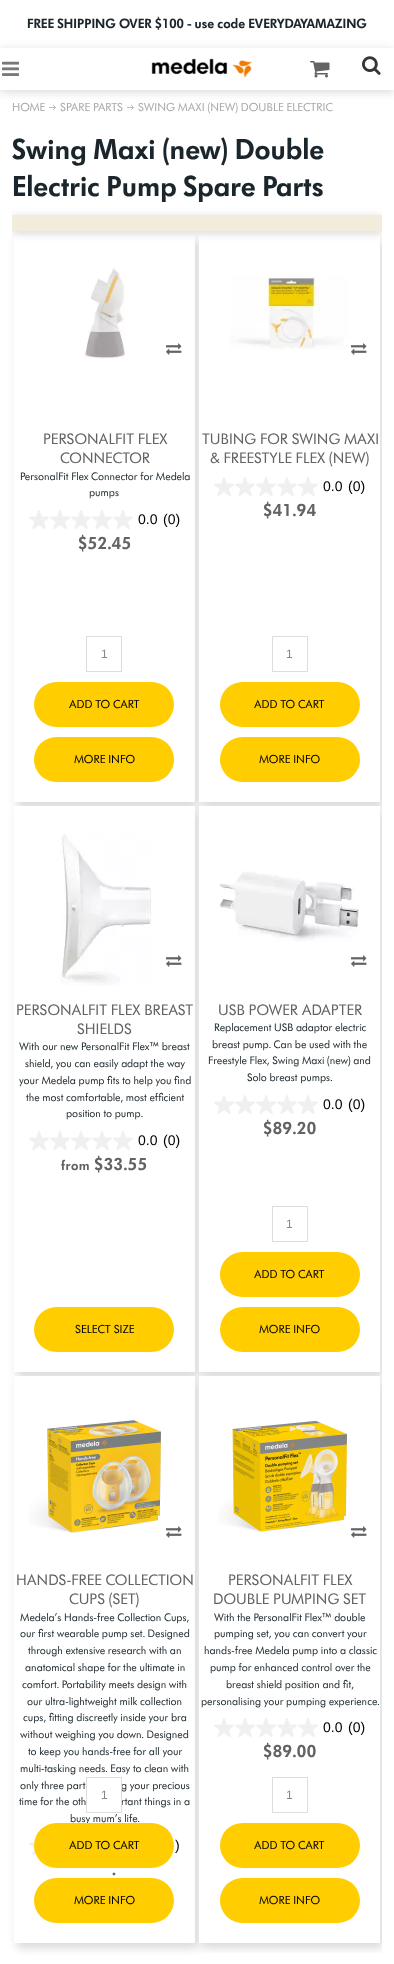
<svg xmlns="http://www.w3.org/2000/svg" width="394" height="1964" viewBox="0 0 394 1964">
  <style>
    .t1 { font: 600 14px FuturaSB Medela; fill: #1b262c; }
    .t2 { font: 12px FuturaSB Medela; fill: #aaa; }
    .t3 { font: 600 30px FuturaSB Medela; fill: #1b262c; }
    .t4 { font: 15.75px FuturaSB Medela; fill: #646363; }
    .t5 { font: 11.25px FuturaSB Medela; fill: #1b262c; }
    .t6 { font: 14px Liberation Sans; fill: #000; }
    .t7 { font: 600 18px FuturaSB Medela; letter-spacing: 0.5px; fill: #646363; }
    .t8 { font: 12px Liberation Sans; fill: #888; }
    .t9 { font: 12px FuturaSB Medela; fill: #000; }
    .t10 { font: 600 14px FuturaSB Medela; letter-spacing: 0.5px; fill: #646363; }
  </style>
  <defs>
    <clipPath id="clip1"><path d="M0 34H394V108H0ZM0 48H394V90H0Z" clip-rule="evenodd"/></clipPath>
    <clipPath id="clip2"><path d="M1 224H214V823H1ZM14 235H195V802H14Z" clip-rule="evenodd"/></clipPath>
    <clipPath id="clip3"><rect x="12" y="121" width="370" height="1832"/></clipPath>
  </defs>
  <rect width="100%" height="100%" fill="#fff"/>
  <text x="27" y="28" class="t1">FREE SHIPPING OVER $100 - use code EVERYDAYAMAZING</text>
  <image x="49" y="105" width="7" height="5" href="images/5.png"/>
  <image x="127" y="105" width="7" height="5" href="images/5.png"/>
  <g clip-path="url(#clip1)">
    <rect x="0" y="50" width="394" height="42" fill="#00000026" filter="blur(5px)"/>
  </g>
  <image x="2" y="61" width="17" height="15" href="images/1.png"/>
  <image x="151" y="58" width="101" height="20" href="images/2.png"/>
  <image x="310" y="61" width="20" height="17" href="images/3.png"/>
  <image x="362" y="56" width="19" height="19" href="images/4.png"/>
  <text x="12" y="111" class="t2">HOME</text>
  <text x="60" y="111" class="t2">SPARE PARTS</text>
  <text x="138" y="111" class="t2">SWING MAXI (NEW) DOUBLE ELECTRIC</text>
  <text x="12" y="159" class="t3">Swing Maxi (new) Double</text>
  <text x="12" y="196" class="t3">Electric Pump Spare Parts</text>
  <g clip-path="url(#clip2)">
    <rect x="17" y="240" width="181" height="567" fill="#00000026" filter="blur(5px)"/>
  </g>
  <g clip-path="url(#clip3)">
    <rect x="202" y="240" width="181" height="567" fill="#00000026" filter="blur(5px)"/>
  </g>
  <rect x="199" y="235" width="181" height="567" fill="#fff"/>
  <g clip-path="url(#clip3)">
    <rect x="12" y="217" width="370" height="16" fill="#00000026" filter="blur(5px)"/>
  </g>
  <rect x="12" y="215" width="370" height="16" fill="#f2ecdc"/>
  <image x="84" y="268" width="41" height="91" href="images/6.png"/>
  <image x="166" y="343" width="16" height="12" href="images/7.png"/>
  <text x="43" y="444" class="t4">PERSONALFIT FLEX</text>
  <text x="60" y="463" class="t4">CONNECTOR</text>
  <text x="20" y="480" class="t5">PersonalFit Flex Connector for Medela</text>
  <text x="89" y="496" class="t5">pumps</text>
  <image x="29" y="510" width="20" height="19" href="images/8.png"/>
  <image x="50" y="510" width="20" height="19" href="images/8.png"/>
  <image x="71" y="510" width="20" height="19" href="images/8.png"/>
  <image x="92" y="510" width="20" height="19" href="images/8.png"/>
  <image x="113" y="510" width="20" height="19" href="images/8.png"/>
  <text x="138" y="524" class="t6">0.0</text>
  <text x="163" y="524" class="t6">(0)</text>
  <text x="78" y="549" class="t7">$52.45</text>
  <rect x="86.5" y="636.5" width="35" height="35" fill="none" stroke="#ddd"/>
  <text x="101" y="658" class="t8">1</text>
  <rect x="34" y="682" width="140" height="45" rx="22.5" fill="#ffcd00"/>
  <text x="69" y="708" class="t9">ADD TO CART</text>
  <rect x="34" y="737" width="140" height="45" rx="22.5" fill="#ffcd00"/>
  <text x="74" y="763" class="t9">MORE INFO</text>
  <image x="230" y="275" width="119" height="75" href="images/9.png"/>
  <rect x="344" y="338" width="5" height="7" fill="#fff"/>
  <image x="351" y="343" width="16" height="12" href="images/7.png"/>
  <text x="202" y="444" class="t4">TUBING FOR SWING MAXI</text>
  <text x="210" y="463" class="t4">&amp; FREESTYLE FLEX (NEW)</text>
  <image x="214" y="477" width="20" height="19" href="images/8.png"/>
  <image x="235" y="477" width="20" height="19" href="images/8.png"/>
  <image x="256" y="477" width="20" height="19" href="images/8.png"/>
  <image x="277" y="477" width="20" height="19" href="images/8.png"/>
  <image x="298" y="477" width="20" height="19" href="images/8.png"/>
  <text x="323" y="491" class="t6">0.0</text>
  <text x="348" y="491" class="t6">(0)</text>
  <text x="263" y="516" class="t7">$41.94</text>
  <rect x="272.5" y="636.5" width="35" height="35" fill="none" stroke="#ddd"/>
  <text x="286" y="658" class="t8">1</text>
  <rect x="220" y="682" width="140" height="45" rx="22.5" fill="#ffcd00"/>
  <text x="254" y="708" class="t9">ADD TO CART</text>
  <rect x="220" y="737" width="140" height="45" rx="22.5" fill="#ffcd00"/>
  <text x="259" y="763" class="t9">MORE INFO</text>
  <rect x="17" y="811" width="181" height="566" fill="#00000026" filter="blur(5px)"/>
  <rect x="14" y="806" width="181" height="566" fill="#fff"/>
  <image x="60" y="834" width="92" height="152" href="images/10.png"/>
  <image x="166" y="955" width="16" height="12" href="images/7.png"/>
  <text x="16" y="1015" class="t4">PERSONALFIT FLEX BREAST</text>
  <text x="77" y="1034" class="t4">SHIELDS</text>
  <text x="19" y="1050" class="t5">With our new PersonalFit Flex™ breast</text>
  <text x="25" y="1067" class="t5">shield, you can easily adapt the way</text>
  <text x="19" y="1084" class="t5">your Medela pump fits to help you find</text>
  <text x="26" y="1101" class="t5">the most comfortable, most efficient</text>
  <text x="66" y="1117" class="t5">position to pump.</text>
  <image x="29" y="1131" width="20" height="19" href="images/8.png"/>
  <image x="50" y="1131" width="20" height="19" href="images/8.png"/>
  <image x="71" y="1131" width="20" height="19" href="images/8.png"/>
  <image x="92" y="1131" width="20" height="19" href="images/8.png"/>
  <image x="113" y="1131" width="20" height="19" href="images/8.png"/>
  <text x="138" y="1145" class="t6">0.0</text>
  <text x="163" y="1145" class="t6">(0)</text>
  <text x="61" y="1170" class="t10">from</text>
  <text x="94" y="1170" class="t7">$33.55</text>
  <rect x="34" y="1307" width="140" height="45" rx="22.5" fill="#ffcd00"/>
  <text x="75" y="1333" class="t9">SELECT SIZE</text>
  <g clip-path="url(#clip3)">
    <rect x="202" y="811" width="181" height="566" fill="#00000026" filter="blur(5px)"/>
  </g>
  <rect x="199" y="806" width="181" height="566" fill="#fff"/>
  <image x="218" y="871" width="142" height="71" href="images/11.png"/>
  <image x="351" y="955" width="16" height="12" href="images/7.png"/>
  <text x="218" y="1015" class="t4">USB POWER ADAPTER</text>
  <text x="214" y="1031" class="t5">Replacement USB adaptor electric</text>
  <text x="212" y="1048" class="t5">breast pump. Can be used with the</text>
  <text x="208" y="1064" class="t5">Freestyle Flex, Swing Maxi (new) and</text>
  <text x="247" y="1081" class="t5">Solo breast pumps.</text>
  <image x="214" y="1095" width="20" height="19" href="images/8.png"/>
  <image x="235" y="1095" width="20" height="19" href="images/8.png"/>
  <image x="256" y="1095" width="20" height="19" href="images/8.png"/>
  <image x="277" y="1095" width="20" height="19" href="images/8.png"/>
  <image x="298" y="1095" width="20" height="19" href="images/8.png"/>
  <text x="323" y="1109" class="t6">0.0</text>
  <text x="348" y="1109" class="t6">(0)</text>
  <text x="263" y="1134" class="t7">$89.20</text>
  <rect x="272.5" y="1206.5" width="35" height="35" fill="none" stroke="#ddd"/>
  <text x="286" y="1228" class="t8">1</text>
  <rect x="220" y="1252" width="140" height="45" rx="22.5" fill="#ffcd00"/>
  <text x="254" y="1278" class="t9">ADD TO CART</text>
  <rect x="220" y="1307" width="140" height="45" rx="22.5" fill="#ffcd00"/>
  <text x="259" y="1333" class="t9">MORE INFO</text>
  <rect x="17" y="1381" width="181" height="567" fill="#00000026" filter="blur(5px)"/>
  <rect x="14" y="1376" width="181" height="567" fill="#fff"/>
  <image x="29" y="1420" width="132" height="113" href="images/12.png"/>
  <rect x="158" y="1516" width="2" height="5" fill="#fff"/>
  <image x="166" y="1526" width="16" height="12" href="images/7.png"/>
  <text x="16" y="1585" class="t4">HANDS-FREE COLLECTION</text>
  <text x="69" y="1604" class="t4">CUPS (SET)</text>
  <text x="20" y="1621" class="t5">Medela’s Hands-free Collection Cups,</text>
  <text x="20" y="1637" class="t5">our first wearable pump set. Designed</text>
  <text x="28" y="1654" class="t5">through extensive research with an</text>
  <text x="25" y="1671" class="t5">anatomical shape for the ultimate in</text>
  <text x="22" y="1688" class="t5">comfort. Portability meets design with</text>
  <text x="27" y="1705" class="t5">our ultra-lightweight milk collection</text>
  <text x="23" y="1721" class="t5">cups, fitting discreetly inside your bra</text>
  <text x="20" y="1738" class="t5">without weighing you down. Designed</text>
  <text x="28" y="1755" class="t5">to keep you hands-free for all your</text>
  <text x="20" y="1772" class="t5">multi-tasking needs. Easy to clean with</text>
  <text x="20" y="1789" class="t5">only three part</text>
  <text x="121" y="1789" class="t5">g your precious</text>
  <text x="19" y="1805" class="t5">time for the oth</text>
  <text x="121" y="1805" class="t5">rtant things in a</text>
  <text x="70" y="1822" class="t5">busy mum’s life.</text>
  <image x="29" y="1842" width="7" height="13" href="images/13.png"/>
  <text x="175" y="1850" class="t6">)</text>
  <rect x="86.5" y="1777.5" width="35" height="35" fill="none" stroke="#ddd"/>
  <text x="101" y="1799" class="t8">1</text>
  <rect x="34" y="1823" width="140" height="45" rx="22.5" fill="#ffcd00"/>
  <text x="69" y="1849" class="t9">ADD TO CART</text>
  <rect x="34" y="1878" width="140" height="45" rx="22.5" fill="#ffcd00"/>
  <text x="74" y="1904" class="t9">MORE INFO</text>
  <text x="112" y="1875" class="t7">.</text>
  <g clip-path="url(#clip3)">
    <rect x="202" y="1381" width="181" height="567" fill="#00000026" filter="blur(5px)"/>
  </g>
  <rect x="199" y="1376" width="181" height="567" fill="#fff"/>
  <image x="218" y="1420" width="129" height="112" href="images/14.png"/>
  <rect x="344" y="1516" width="3" height="5" fill="#fff"/>
  <image x="351" y="1526" width="16" height="12" href="images/7.png"/>
  <text x="228" y="1585" class="t4">PERSONALFIT FLEX</text>
  <text x="213" y="1604" class="t4">DOUBLE PUMPING SET</text>
  <text x="214" y="1621" class="t5">With the PersonalFit Flex™ double</text>
  <text x="214" y="1637" class="t5">pumping set, you can convert your</text>
  <text x="204" y="1654" class="t5">hands-free Medela pump into a classic</text>
  <text x="210" y="1671" class="t5">pump for enhanced control over the</text>
  <text x="226" y="1688" class="t5">breast shield position and fit,</text>
  <text x="201" y="1705" class="t5">personalising your pumping experience.</text>
  <image x="214" y="1718" width="20" height="19" href="images/8.png"/>
  <image x="235" y="1718" width="20" height="19" href="images/8.png"/>
  <image x="256" y="1718" width="20" height="19" href="images/8.png"/>
  <image x="277" y="1718" width="20" height="19" href="images/8.png"/>
  <image x="298" y="1718" width="20" height="19" href="images/8.png"/>
  <text x="323" y="1732" class="t6">0.0</text>
  <text x="348" y="1732" class="t6">(0)</text>
  <text x="263" y="1757" class="t7">$89.00</text>
  <rect x="272.5" y="1777.5" width="35" height="35" fill="none" stroke="#ddd"/>
  <text x="286" y="1799" class="t8">1</text>
  <rect x="220" y="1823" width="140" height="45" rx="22.5" fill="#ffcd00"/>
  <text x="254" y="1849" class="t9">ADD TO CART</text>
  <rect x="220" y="1878" width="140" height="45" rx="22.5" fill="#ffcd00"/>
  <text x="259" y="1904" class="t9">MORE INFO</text>
</svg>
